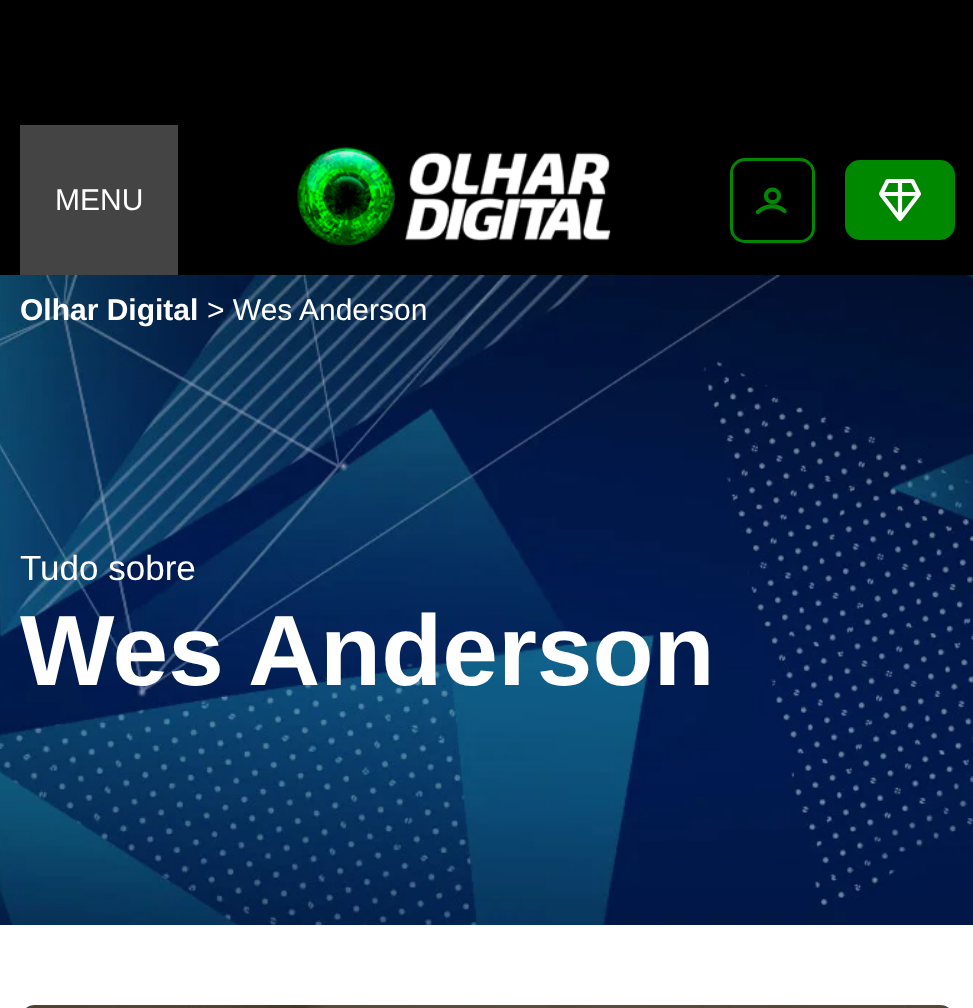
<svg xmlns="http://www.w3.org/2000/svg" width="973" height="1008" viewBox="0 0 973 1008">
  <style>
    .t1 { font: 30px Liberation Sans; fill: #fff; }
    .t2 { font: bold 30px Liberation Sans; fill: #fff; }
    .t3 { font: 35px Liberation Sans; fill: #fff; }
    .t4 { font: bold 100px Liberation Sans; fill: #fff; }
  </style>
  <rect width="100%" height="100%" fill="#fff"/>
  <rect x="0" y="0" width="973" height="275" fill="#000"/>
  <rect x="20" y="125" width="158" height="150" fill="#444"/>
  <text x="55" y="210" class="t1">MENU</text>
  <image x="297" y="147" width="314" height="98" href="images/1.png"/>
  <rect x="731.5" y="159.5" width="82" height="82" rx="13.5" fill="none" stroke="#080" stroke-width="3"/>
  <path d="M758 212C765 205 777 204.5 784.5 211M779 196C779 204 766 204 766 196C766 187.5 779 187.5 779 196Z" fill="none" stroke="#080" stroke-width="4.2" stroke-linecap="round" stroke-linejoin="round"/>
  <rect x="845" y="160" width="110" height="80" rx="15" fill="#080"/>
  <path d="M887.5 181H912.5L919 194L900 219L881 194ZM881 194H919M900 181V219" fill="none" stroke="#fff" stroke-width="4.2" stroke-linecap="round" stroke-linejoin="round"/>
  <image x="0" y="275" width="973" height="650" href="images/2.png"/>
  <text x="20" y="320" class="t2">Olhar Digital</text>
  <text x="207" y="320" class="t1">&gt; Wes Anderson</text>
  <text x="20" y="580" class="t3">Tudo sobre</text>
  <text x="20" y="685" class="t4">Wes Anderson</text>
  <image x="26" y="1005" width="923" height="3" href="images/3.png"/>
</svg>
